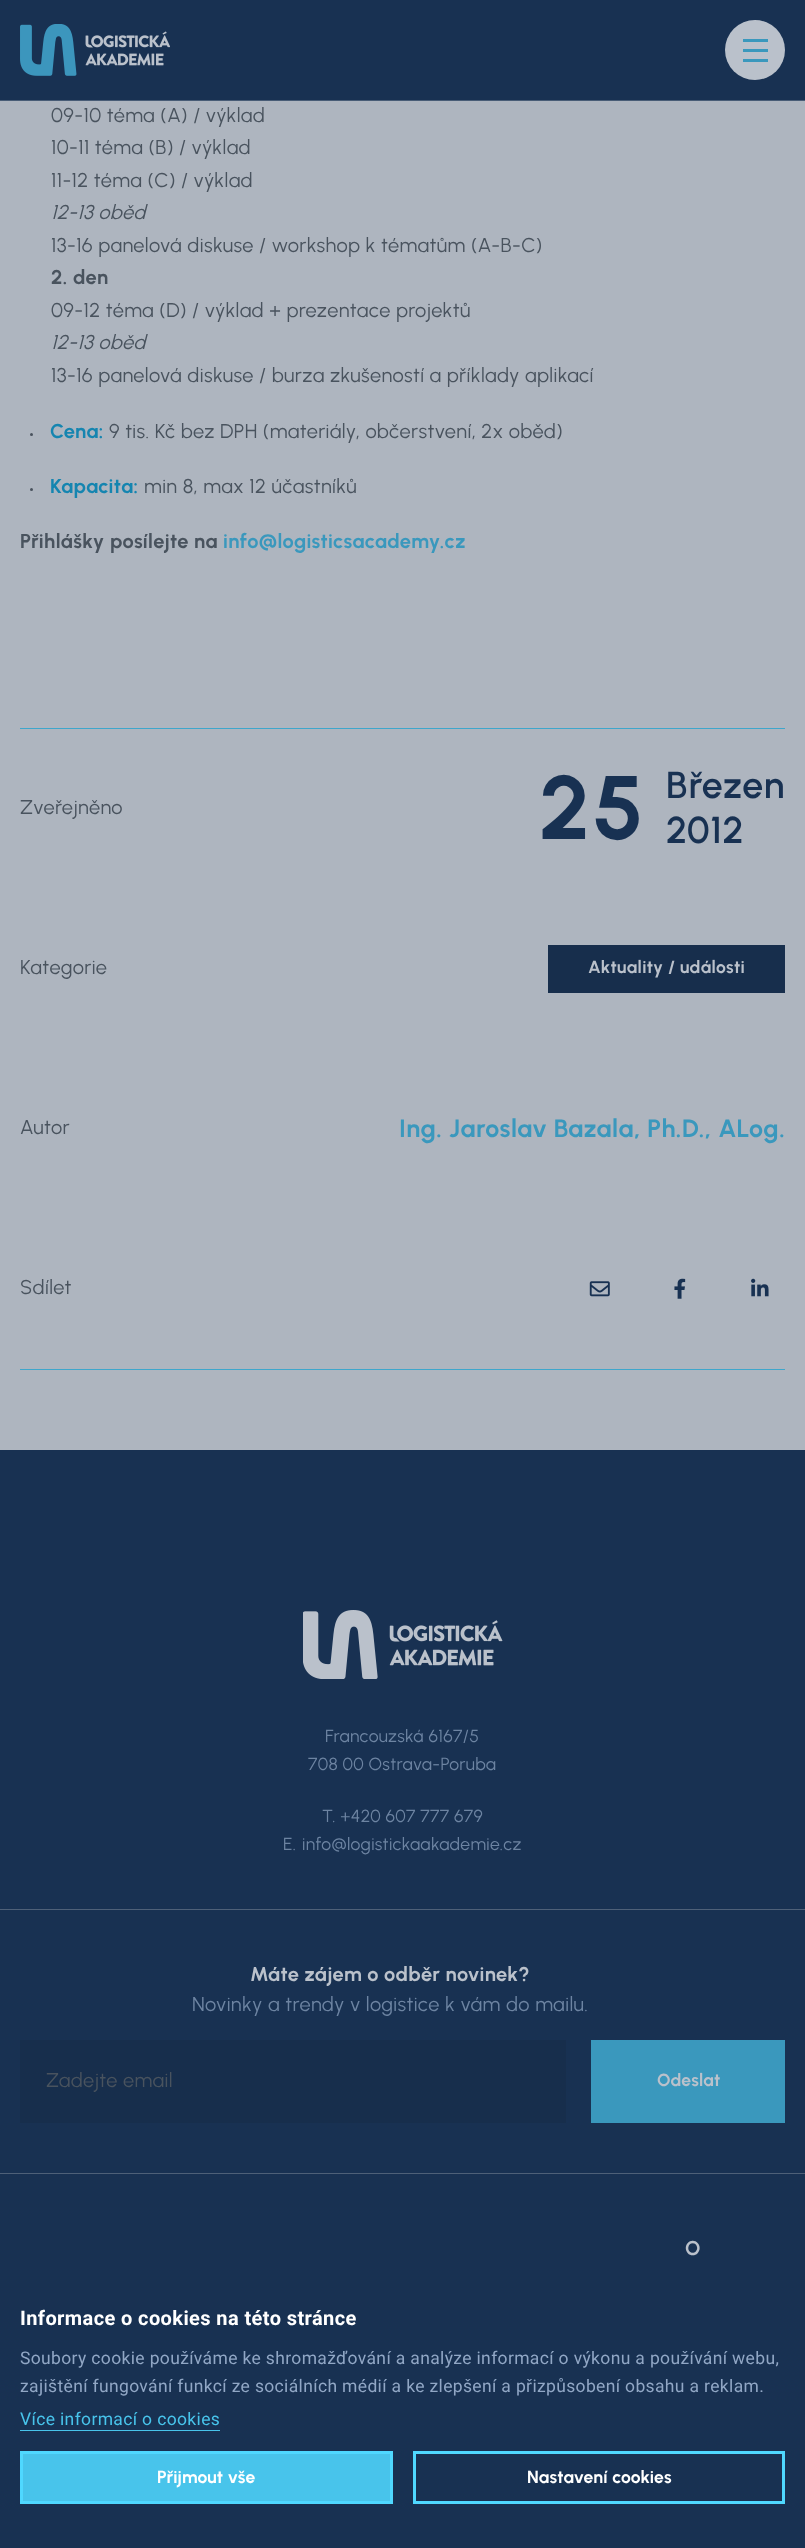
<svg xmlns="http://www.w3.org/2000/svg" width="805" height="2548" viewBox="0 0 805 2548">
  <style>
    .t1 { font: 20px Urbanist; letter-spacing: 0.4px; fill: #49535e; }
    .t2 { font: italic 20px Urbanist; letter-spacing: 0.4px; fill: #49535e; }
    .t3 { font: bold 20px Urbanist; letter-spacing: 0.4px; fill: #49535e; }
    .t4 { font: bold 20px Urbanist; letter-spacing: 0.4px; fill: #1585b0; }
    .t5 { font: bold 20px Urbanist; letter-spacing: 0.4px; fill: #3a98bd; }
    .t6 { font: bold 90px Urbanist; letter-spacing: 2px; fill: #183152; }
    .t7 { font: 600 37.5px Urbanist; letter-spacing: 0.75px; fill: #183152; }
    .t8 { font: bold 17.5px Urbanist; letter-spacing: 0.35px; fill: #bac1cb; }
    .t9 { font: bold 25px Urbanist; letter-spacing: 0.5px; fill: #3a98bd; }
    .t10 { font: 17.5px Urbanist; letter-spacing: 0.35px; fill: #6d84a2; }
    .t11 { font: bold 20px Urbanist; letter-spacing: 0.4px; fill: #bac1cb; }
    .t12 { font: 20px Urbanist; letter-spacing: 0.4px; fill: #6d84a2; }
    .t13 { font: bold 17.5px Urbanist; letter-spacing: 0.2px; fill: #bac1cb; }
    .t14 { font: bold 20px Roboto; letter-spacing: 0.4px; fill: #fff; }
    .t15 { font: 17.5px Roboto; letter-spacing: 0.35px; fill: #91a7c5; }
    .t16 { font: 17.5px Roboto; letter-spacing: 0.35px; fill: #48c4eb; }
    .t17 { font: bold 17.5px Urbanist; letter-spacing: 0.2px; fill: #fff; }
  </style>
  <rect width="100%" height="100%" fill="#aeb5bf"/>
  <rect x="0" y="0" width="805" height="100" fill="#183152"/>
  <rect x="0" y="100" width="805" height="1" fill="#485c76"/>
  <image x="20" y="24" width="150" height="52" href="images/1.png"/>
  <circle cx="755" cy="50" r="30" fill="#bac1cb"/>
  <rect x="743" y="39" width="25" height="3" fill="#3a98bd"/>
  <rect x="743" y="49" width="25" height="3" fill="#3a98bd"/>
  <rect x="743" y="59" width="25" height="3" fill="#3a98bd"/>
  <text x="51" y="122" class="t1">09-10 téma (A) / výklad</text>
  <text x="51" y="154" class="t1">10-11 téma (B) / výklad</text>
  <text x="51" y="187" class="t1">11-12 téma (C) / výklad</text>
  <text x="51" y="219" class="t2">12-13 oběd</text>
  <text x="51" y="252" class="t1">13-16 panelová diskuse / workshop k tématům (A-B-C)</text>
  <text x="51" y="284" class="t3">2. den</text>
  <text x="51" y="317" class="t1">09-12 téma (D) / výklad + prezentace projektů</text>
  <text x="51" y="349" class="t2">12-13 oběd</text>
  <text x="51" y="382" class="t1">13-16 panelová diskuse / burza zkušeností a příklady aplikací</text>
  <circle cx="31.5" cy="434.5" r="1.5" fill="#49535e"/>
  <text x="50" y="438" class="t4">Cena:</text>
  <text x="109" y="438" class="t1">9 tis. Kč bez DPH (materiály, občerstvení, 2x oběd)</text>
  <circle cx="31.5" cy="489.5" r="1.5" fill="#49535e"/>
  <text x="50" y="493" class="t4">Kapacita:</text>
  <text x="144" y="493" class="t1">min 8, max 12 účastníků</text>
  <text x="20" y="548" class="t3">Přihlášky posílejte na</text>
  <text x="223" y="548" class="t5">info@logisticsacademy.cz</text>
  <rect x="20" y="728" width="765" height="1" fill="#3fa6cb"/>
  <rect x="20" y="1369" width="765" height="1" fill="#3fa6cb"/>
  <text x="20" y="814" class="t1">Zveřejněno</text>
  <text x="539" y="839" class="t6">25</text>
  <text x="666" y="798" class="t7">Březen</text>
  <text x="666" y="843" class="t7">2012</text>
  <text x="20" y="974" class="t1">Kategorie</text>
  <rect x="548" y="945" width="237" height="48" fill="#172e4c"/>
  <text x="588" y="973" class="t8">Aktuality / události</text>
  <text x="20" y="1134" class="t1">Autor</text>
  <text x="399" y="1137" class="t9">Ing. Jaroslav Bazala, Ph.D., ALog.</text>
  <text x="20" y="1294" class="t1">Sdílet</text>
  <image x="589" y="1281" width="21" height="16" href="images/2.png"/>
  <image x="674" y="1278" width="12" height="21" href="images/3.png"/>
  <image x="751" y="1278" width="18" height="19" href="images/4.png"/>
  <rect x="0" y="1450" width="805" height="1098" fill="#183152"/>
  <rect x="0" y="1909" width="805" height="1" fill="#4e6078"/>
  <image x="303" y="1610" width="200" height="69" href="images/5.png"/>
  <text x="325" y="1742" class="t10">Francouzská 6167/5</text>
  <text x="308" y="1770" class="t10">708 00 Ostrava-Poruba</text>
  <text x="322" y="1822" class="t10">T. +420 607 777 679</text>
  <text x="283" y="1850" class="t10">E.</text>
  <text x="302" y="1850" class="t10">info@logistickaakademie.cz</text>
  <rect x="0" y="2173" width="805" height="1" fill="#4e6078"/>
  <text x="250" y="1981" class="t11">Máte zájem o odběr novinek?</text>
  <text x="192" y="2011" class="t12">Novinky a trendy v logistice k vám do mailu.</text>
  <rect x="20" y="2040" width="546" height="83" fill="#172e4c"/>
  <text x="46" y="2087" class="t1">Zadejte email</text>
  <rect x="591" y="2040" width="194" height="83" fill="#3a98bd"/>
  <text x="657" y="2086" class="t13">Odeslat</text>
  <text x="685" y="2255" class="t11">O</text>
  <text x="20" y="2325" class="t14">Informace o cookies na této stránce</text>
  <text x="20" y="2364" class="t15">Soubory cookie používáme ke shromažďování a analýze informací o výkonu a používání webu,</text>
  <text x="20" y="2392" class="t15">zajištění fungování funkcí ze sociálních médií a ke zlepšení a přizpůsobení obsahu a reklam.</text>
  <rect x="20" y="2430" width="200" height="1" fill="#48c4eb"/>
  <text x="20" y="2425" class="t16">Více informací o cookies</text>
  <rect x="21.5" y="2452.5" width="370" height="50" fill="#48c4eb" stroke="#4fd8ff" stroke-width="3"/>
  <text x="157" y="2483" class="t17">Přijmout vše</text>
  <rect x="414.5" y="2452.5" width="369" height="50" fill="none" stroke="#4fd8ff" stroke-width="3"/>
  <text x="527" y="2483" class="t17">Nastavení cookies</text>
</svg>
